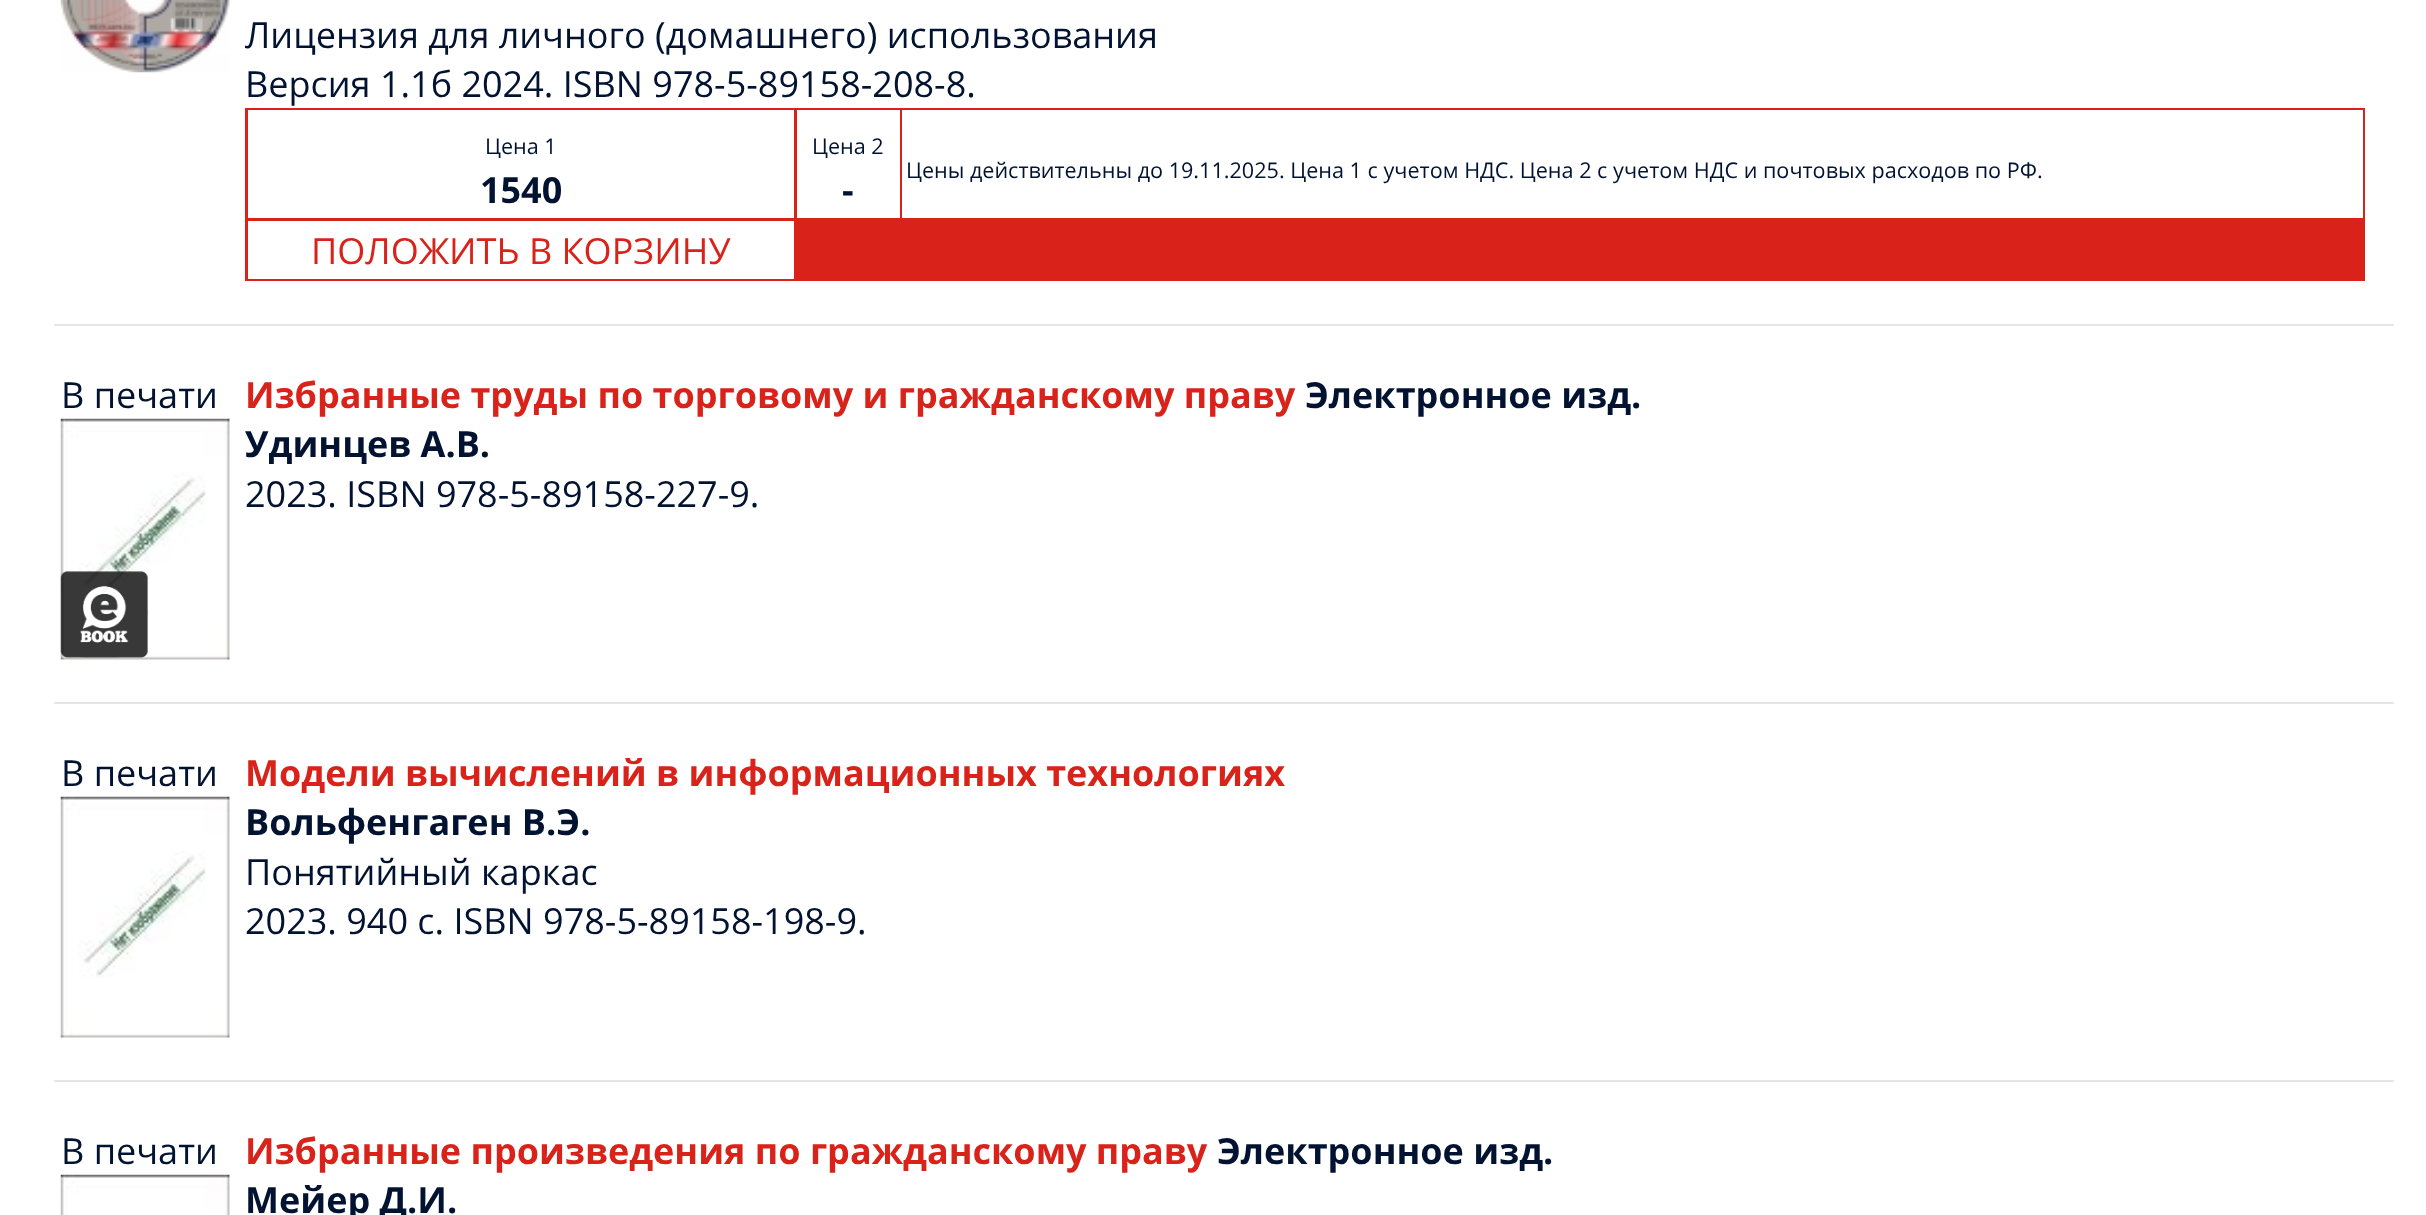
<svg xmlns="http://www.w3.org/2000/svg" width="2426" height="1215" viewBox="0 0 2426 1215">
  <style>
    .t1 { font: 36px Open Sans; fill: #021331; }
    .t2 { font: 21.6px Open Sans; fill: #021331; }
    .t3 { font: bold 36px Open Sans; fill: #021331; }
    .t4 { font: 36px Open Sans; fill: #d9231a; }
    .t5 { font: bold 36px Open Sans; fill: #d9231a; }
  </style>
  <rect width="100%" height="100%" fill="#fff"/>
  <image x="60" y="0" width="170" height="73" href="images/1.png"/>
  <text x="245" y="48" class="t1">Лицензия для личного (домашнего) использования</text>
  <text x="245" y="97" class="t1">Версия 1.1б 2024. ISBN 978-5-89158-208-8.</text>
  <rect x="245" y="108" width="2120" height="173" fill="#d9231a"/>
  <rect x="248" y="110" width="546" height="108" fill="#fff"/>
  <text x="485" y="154" class="t2">Цена 1</text>
  <text x="480" y="203" class="t3">1540</text>
  <rect x="797" y="110" width="103" height="108" fill="#fff"/>
  <text x="812" y="154" class="t2">Цена 2</text>
  <text x="842" y="203" class="t3">-</text>
  <rect x="902" y="110" width="1461" height="108" fill="#fff"/>
  <text x="906" y="178" class="t2">Цены действительны до 19.11.2025. Цена 1 с учетом НДС. Цена 2 с учетом НДС и почтовых расходов по РФ.</text>
  <rect x="248" y="221" width="546" height="58" fill="#fff"/>
  <text x="311" y="264" class="t4">ПОЛОЖИТЬ В КОРЗИНУ</text>
  <rect x="54" y="324" width="2340" height="2" fill="#e6e6e6"/>
  <text x="61" y="408" class="t1">В печати</text>
  <image x="60" y="418" width="170" height="242" href="images/2.png"/>
  <image x="60" y="571" width="89" height="87" href="images/3.png"/>
  <text x="245" y="408" class="t5">Избранные труды по торговому и гражданскому праву</text>
  <text x="1305" y="408" class="t3">Электронное изд.</text>
  <text x="245" y="457" class="t3">Удинцев А.В.</text>
  <text x="245" y="507" class="t1">2023. ISBN 978-5-89158-227-9.</text>
  <rect x="54" y="702" width="2340" height="2" fill="#e6e6e6"/>
  <text x="61" y="786" class="t1">В печати</text>
  <image x="60" y="796" width="170" height="242" href="images/4.png"/>
  <text x="245" y="786" class="t5">Модели вычислений в информационных технологиях</text>
  <text x="245" y="835" class="t3">Вольфенгаген В.Э.</text>
  <text x="245" y="885" class="t1">Понятийный каркас</text>
  <text x="245" y="934" class="t1">2023. 940 с. ISBN 978-5-89158-198-9.</text>
  <rect x="54" y="1080" width="2340" height="2" fill="#e6e6e6"/>
  <text x="61" y="1164" class="t1">В печати</text>
  <image x="60" y="1174" width="170" height="41" href="images/5.png"/>
  <text x="245" y="1164" class="t5">Избранные произведения по гражданскому праву</text>
  <text x="1217" y="1164" class="t3">Электронное изд.</text>
  <text x="245" y="1213" class="t3">Мейер Д.И.</text>
</svg>
